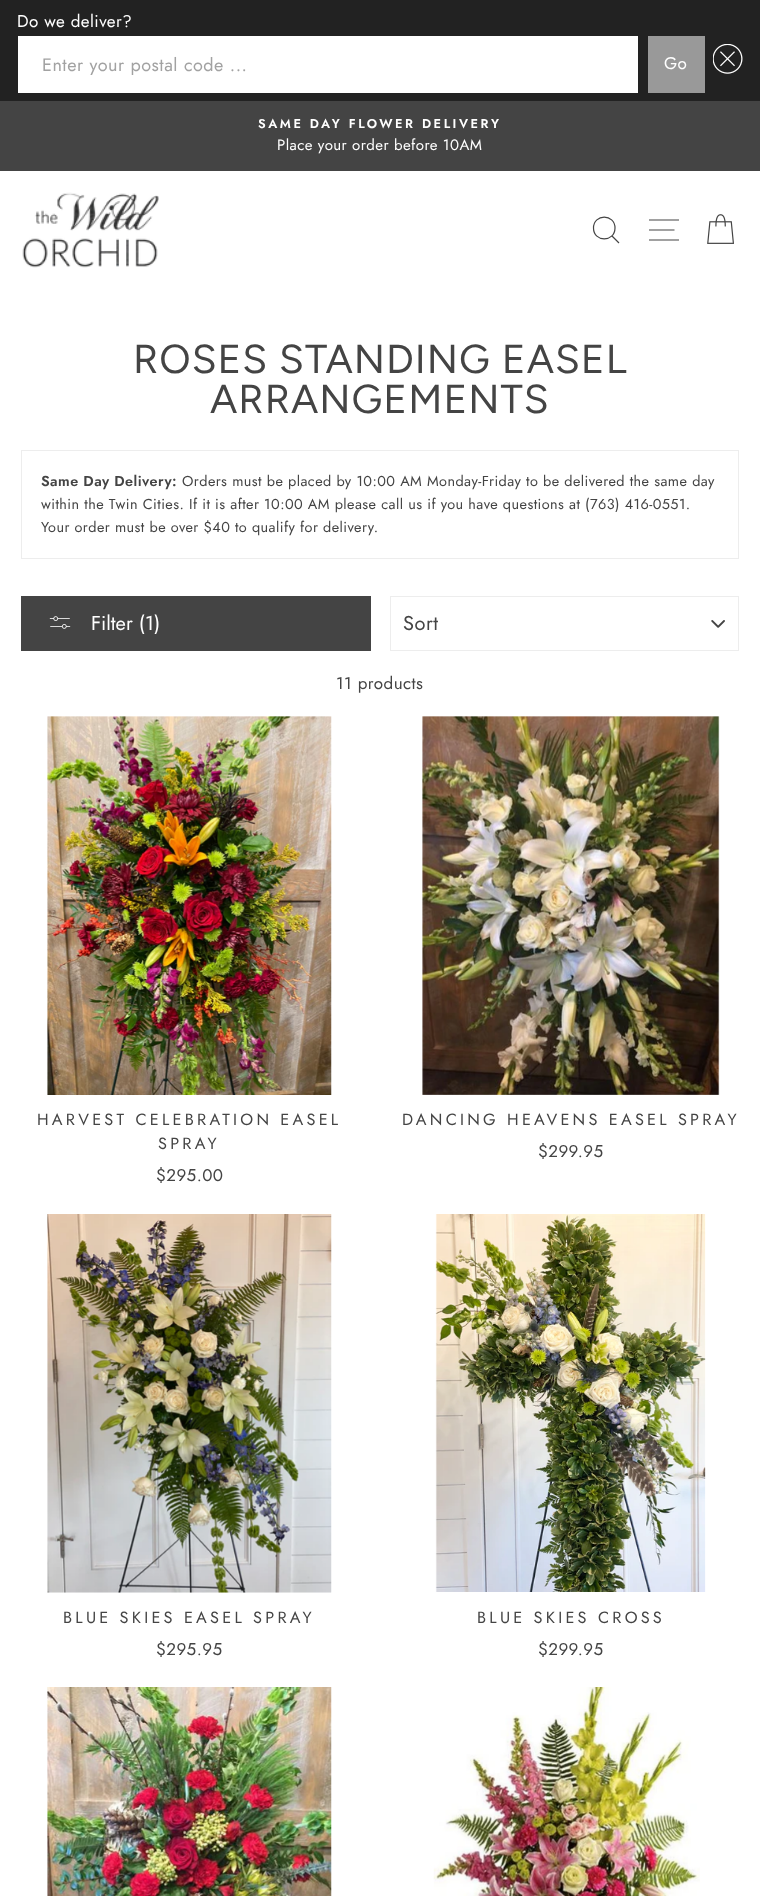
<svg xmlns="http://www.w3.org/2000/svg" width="760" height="1896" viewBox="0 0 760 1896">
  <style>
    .t1 { font: 17px Jost; letter-spacing: 0.43px; fill: #fff; }
    .t2 { font: 18px Jost; letter-spacing: 0.5px; fill: #a2a2a2; }
    .t3 { font: 600 12.75px Jost; letter-spacing: 2.55px; fill: #fff; }
    .t4 { font: 15px Jost; letter-spacing: 0.43px; fill: #fff; }
    .t5 { font: 40.4px Figtree; letter-spacing: 1px; fill: #444; }
    .t6 { font: 600 14.45px Jost; letter-spacing: 0.43px; fill: #444; }
    .t7 { font: 14.45px Jost; letter-spacing: 0.43px; fill: #444; }
    .t8 { font: 20px Jost; fill: #fff; }
    .t9 { font: 20px Jost; letter-spacing: 0.5px; fill: #444; }
    .t10 { font: 17px Jost; letter-spacing: 0.43px; fill: #444; }
    .t11 { font: 16.25px Jost; letter-spacing: 3.25px; fill: #444; }
  </style>
  <rect width="100%" height="100%" fill="#fff"/>
  <rect x="0" y="0" width="760" height="101" fill="#222"/>
  <text x="17" y="27" class="t1">Do we deliver?</text>
  <rect x="18" y="36" width="620" height="57" fill="#fff"/>
  <text x="42" y="71" class="t2">Enter your postal code ...</text>
  <rect x="648" y="36" width="57" height="57" fill="#999"/>
  <text x="664" y="69" class="t1">Go</text>
  <image x="713" y="44" width="30" height="30" href="images/1.png"/>
  <rect x="0" y="101" width="760" height="70" fill="#444"/>
  <text x="258" y="128" class="t3">SAME DAY FLOWER DELIVERY</text>
  <text x="277" y="150" class="t4">Place your order before 10AM</text>
  <rect x="0" y="171" width="760" height="119" fill="#00000033" filter="blur(0.5px)"/>
  <rect x="0" y="171" width="760" height="119" fill="#fff"/>
  <image x="22" y="192" width="137" height="76" href="images/2.png"/>
  <path d="M615 228C615 242.5 593.5 242.5 593.5 228C593.5 213.5 615 213.5 615 228ZM619 243L612 236" fill="none" stroke="#444" stroke-width="1.2"/>
  <path d="M649 220H679M649 230H674.5M649 240H679" fill="none" stroke="#444" stroke-width="1.2"/>
  <image x="707" y="214" width="27" height="30" href="images/3.png"/>
  <text x="133" y="373" class="t5">ROSES STANDING EASEL</text>
  <text x="210" y="413" class="t5">ARRANGEMENTS</text>
  <rect x="21.5" y="450.5" width="717" height="108" fill="none" stroke="#ededed"/>
  <text x="41" y="486" class="t6">Same Day Delivery:</text>
  <text x="182" y="486" class="t7">Orders must be placed by 10:00 AM Monday-Friday to be delivered the same day</text>
  <text x="41" y="509" class="t7">within the Twin Cities. If it is after 10:00 AM please call us if you have questions at (763) 416-0551.</text>
  <text x="41" y="532" class="t7">Your order must be over $40 to qualify for delivery.</text>
  <rect x="21" y="596" width="350" height="55" fill="#444"/>
  <image x="49" y="616" width="22" height="13" href="images/4.png"/>
  <text x="91" y="630" class="t8">Filter (1)</text>
  <image x="711" y="620" width="14" height="8" href="images/5.png"/>
  <rect x="390.5" y="596.5" width="348" height="54" fill="none" stroke="#ededed"/>
  <text x="403" y="630" class="t9">Sort</text>
  <text x="336" y="689" class="t10">11 products</text>
  <image x="47" y="716" width="285" height="379" href="images/6.png"/>
  <text x="37" y="1125" class="t11">HARVEST CELEBRATION EASEL</text>
  <text x="158" y="1149" class="t11">SPRAY</text>
  <text x="156" y="1181" class="t10">$295.00</text>
  <image x="422" y="716" width="298" height="379" href="images/7.png"/>
  <text x="402" y="1125" class="t11">DANCING HEAVENS EASEL SPRAY</text>
  <text x="538" y="1157" class="t10">$299.95</text>
  <image x="47" y="1214" width="285" height="379" href="images/8.png"/>
  <text x="63" y="1623" class="t11">BLUE SKIES EASEL SPRAY</text>
  <text x="156" y="1655" class="t10">$295.95</text>
  <image x="435" y="1214" width="271" height="378" href="images/9.png"/>
  <text x="477" y="1623" class="t11">BLUE SKIES CROSS</text>
  <text x="538" y="1655" class="t10">$299.95</text>
  <image x="47" y="1687" width="285" height="209" href="images/10.png"/>
  <image x="433" y="1687" width="267" height="209" href="images/11.png"/>
</svg>
